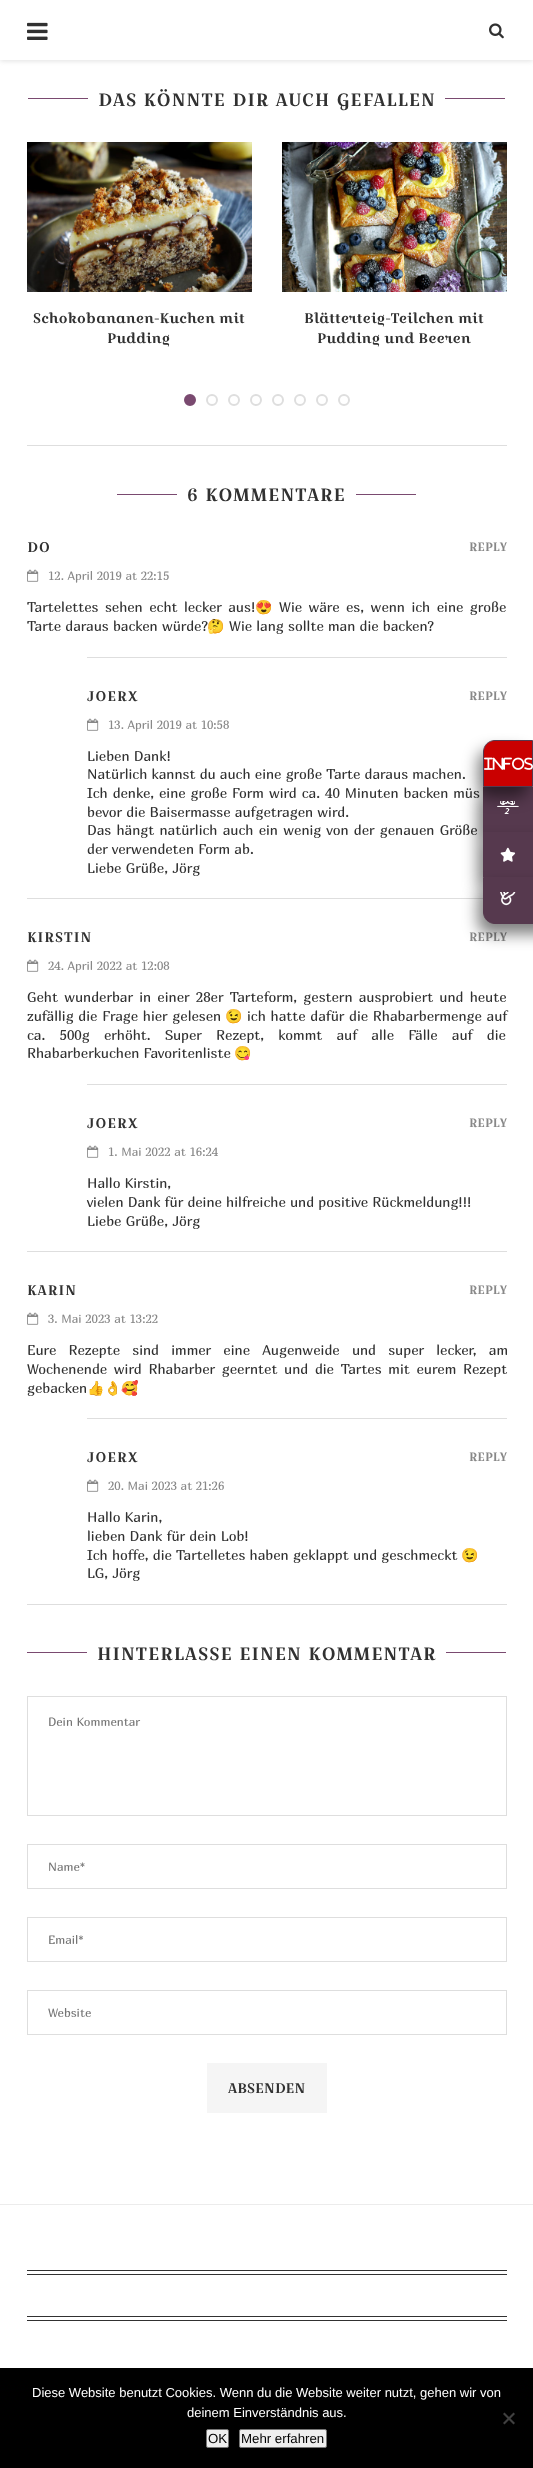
<svg xmlns="http://www.w3.org/2000/svg" width="533" height="2468" viewBox="0 0 533 2468">
  <style>
    .t1 { font: 18px Croissant One; letter-spacing: 1px; fill: #313131; }
    .t2 { font: 14px Croissant One; fill: #313131; }
    .t3 { font: 14px Croissant One; letter-spacing: 1px; fill: #313131; }
    .t4 { font: 12px Croissant One; fill: #888; }
    .t5 { font: 12px Marmelad; fill: #888; }
    .t6 { font: 14px Marmelad; fill: #313131; }
    .t7 { font: 14px Noto Color Emoji; fill: #313131; }
    .t8 { font: 12px Marmelad; fill: #757575; }
    .t9 { font: 13px Liberation Sans; fill: #fff; }
    .t10 { font: 13.25px Liberation Sans; fill: #000; }
  </style>
  <rect width="100%" height="100%" fill="#fff"/>
  <rect x="0" y="1" width="533" height="60" fill="#bebebe75" filter="blur(2.5px)"/>
  <rect x="0" y="0" width="533" height="60" fill="#fff"/>
  <image x="27" y="22" width="21" height="18" href="images/1.png"/>
  <image x="489" y="23" width="15" height="16" href="images/2.png"/>
  <rect x="28" y="98" width="60" height="1" fill="#7a4a70"/>
  <text x="98" y="106" class="t1">DAS KÖNNTE DIR AUCH GEFALLEN</text>
  <rect x="445" y="98" width="60" height="1" fill="#7a4a70"/>
  <image x="27" y="142" width="225" height="150" href="images/3.png"/>
  <text x="33" y="323" class="t2">Schokobananen-Kuchen mit</text>
  <text x="107" y="343" class="t2">Pudding</text>
  <image x="282" y="142" width="225" height="150" href="images/4.png"/>
  <text x="304" y="323" class="t2">Blätterteig-Teilchen mit</text>
  <text x="317" y="343" class="t2">Pudding und Beeren</text>
  <circle cx="190" cy="400" r="5" fill="#7a4a70" stroke="#7a4a70" stroke-width="2"/>
  <circle cx="212" cy="400" r="5" fill="none" stroke="#dedede" stroke-width="2"/>
  <circle cx="234" cy="400" r="5" fill="none" stroke="#dedede" stroke-width="2"/>
  <circle cx="256" cy="400" r="5" fill="none" stroke="#dedede" stroke-width="2"/>
  <circle cx="278" cy="400" r="5" fill="none" stroke="#dedede" stroke-width="2"/>
  <circle cx="300" cy="400" r="5" fill="none" stroke="#dedede" stroke-width="2"/>
  <circle cx="322" cy="400" r="5" fill="none" stroke="#dedede" stroke-width="2"/>
  <circle cx="344" cy="400" r="5" fill="none" stroke="#dedede" stroke-width="2"/>
  <rect x="27" y="445" width="480" height="1" fill="#dedede"/>
  <rect x="117" y="494" width="60" height="1" fill="#7a4a70"/>
  <text x="187" y="501" class="t1">6 KOMMENTARE</text>
  <rect x="356" y="494" width="60" height="1" fill="#7a4a70"/>
  <text x="27" y="552" class="t3">DO</text>
  <text x="469" y="551" class="t4">REPLY</text>
  <image x="27" y="569" width="12" height="13" href="images/5.png"/>
  <text x="48" y="580" class="t5">12. April 2019 at 22:15</text>
  <text x="27" y="612" word-spacing="2.25" class="t6">Tartelettes sehen echt lecker aus!</text>
  <text x="255" y="612" class="t7">😍</text>
  <text x="279" y="612" word-spacing="2.25" class="t6">Wie wäre es, wenn ich eine große</text>
  <text x="27" y="631" class="t6">Tarte daraus backen würde?</text>
  <text x="207" y="631" class="t7">🤔</text>
  <text x="229" y="631" class="t6">Wie lang sollte man die backen?</text>
  <rect x="87" y="657" width="420" height="1" fill="#dedede"/>
  <text x="87" y="701" class="t3">JOERX</text>
  <text x="469" y="700" class="t4">REPLY</text>
  <image x="87" y="718" width="12" height="13" href="images/5.png"/>
  <text x="108" y="729" class="t5">13. April 2019 at 10:58</text>
  <text x="87" y="761" class="t6">Lieben Dank!</text>
  <text x="87" y="779" class="t6">Natürlich kannst du auch eine große Tarte daraus machen.</text>
  <text x="87" y="798" word-spacing="0.75" class="t6">Ich denke, eine große Form wird ca. 40 Minuten backen müs</text>
  <text x="87" y="817" class="t6">bevor die Baisermasse aufgetragen wird.</text>
  <text x="87" y="835" word-spacing="1" class="t6">Das hängt natürlich auch ein wenig von der genauen Größe</text>
  <text x="87" y="854" class="t6">der verwendeten Form ab.</text>
  <text x="87" y="873" class="t6">Liebe Grüße, Jörg</text>
  <rect x="27" y="898" width="456" height="1" fill="#dedede"/>
  <text x="27" y="942" class="t3">KIRSTIN</text>
  <text x="469" y="941" class="t4">REPLY</text>
  <image x="27" y="959" width="12" height="13" href="images/5.png"/>
  <text x="48" y="970" class="t5">24. April 2022 at 12:08</text>
  <text x="27" y="1002" word-spacing="2" class="t6">Geht wunderbar in einer 28er Tarteform, gestern ausprobiert und heute</text>
  <text x="27" y="1021" word-spacing="0.5" class="t6">zufällig die Frage hier gelesen</text>
  <text x="225" y="1021" class="t7">😉</text>
  <text x="247" y="1021" word-spacing="0.5" class="t6">ich hatte dafür die Rhabarbermenge auf</text>
  <text x="27" y="1040" word-spacing="10" class="t6">ca. 500g erhöht. Super Rezept, kommt auf alle Fälle auf die</text>
  <text x="27" y="1058" class="t6">Rhabarberkuchen Favoritenliste</text>
  <text x="234" y="1058" class="t7">😋</text>
  <rect x="87" y="1084" width="420" height="1" fill="#dedede"/>
  <text x="87" y="1128" class="t3">JOERX</text>
  <text x="469" y="1127" class="t4">REPLY</text>
  <image x="87" y="1145" width="12" height="13" href="images/5.png"/>
  <text x="108" y="1156" class="t5">1. Mai 2022 at 16:24</text>
  <text x="87" y="1188" class="t6">Hallo Kirstin,</text>
  <text x="87" y="1207" class="t6">vielen Dank für deine hilfreiche und positive Rückmeldung!!!</text>
  <text x="87" y="1226" class="t6">Liebe Grüße, Jörg</text>
  <rect x="27" y="1251" width="480" height="1" fill="#dedede"/>
  <text x="27" y="1295" class="t3">KARIN</text>
  <text x="469" y="1294" class="t4">REPLY</text>
  <image x="27" y="1312" width="12" height="13" href="images/5.png"/>
  <text x="48" y="1323" class="t5">3. Mai 2023 at 13:22</text>
  <text x="27" y="1355" word-spacing="8" class="t6">Eure Rezepte sind immer eine Augenweide und super lecker, am</text>
  <text x="27" y="1374" word-spacing="2.5" class="t6">Wochenende wird Rhabarber geerntet und die Tartes mit eurem Rezept</text>
  <text x="27" y="1393" class="t6">gebacken</text>
  <text x="87" y="1393" class="t7">👍👌🥰</text>
  <rect x="87" y="1418" width="420" height="1" fill="#dedede"/>
  <text x="87" y="1462" class="t3">JOERX</text>
  <text x="469" y="1461" class="t4">REPLY</text>
  <image x="87" y="1479" width="12" height="13" href="images/5.png"/>
  <text x="108" y="1490" class="t5">20. Mai 2023 at 21:26</text>
  <text x="87" y="1522" class="t6">Hallo Karin,</text>
  <text x="87" y="1541" class="t6">lieben Dank für dein Lob!</text>
  <text x="87" y="1560" class="t6">Ich hoffe, die Tartelletes haben geklappt und geschmeckt</text>
  <text x="461" y="1560" class="t7">😉</text>
  <text x="87" y="1578" class="t6">LG, Jörg</text>
  <rect x="27" y="1604" width="480" height="1" fill="#dedede"/>
  <rect x="27" y="1652" width="60" height="1" fill="#7a4a70"/>
  <text x="97" y="1660" class="t1">HINTERLASSE EINEN KOMMENTAR</text>
  <rect x="446" y="1652" width="60" height="1" fill="#7a4a70"/>
  <rect x="27.5" y="1696.5" width="479" height="119" fill="none" stroke="#dedede"/>
  <text x="48" y="1726" class="t8">Dein Kommentar</text>
  <rect x="27.5" y="1844.5" width="479" height="44" fill="none" stroke="#dedede"/>
  <text x="48" y="1871" class="t8">Name*</text>
  <rect x="27.5" y="1917.5" width="479" height="44" fill="none" stroke="#dedede"/>
  <text x="48" y="1944" class="t8">Email*</text>
  <rect x="27.5" y="1990.5" width="479" height="44" fill="none" stroke="#dedede"/>
  <text x="48" y="2017" class="t8">Website</text>
  <rect x="207" y="2063" width="120" height="50" fill="#f5f5f5"/>
  <text x="228" y="2093" class="t2">ABSENDEN</text>
  <rect x="0" y="2204" width="533" height="1" fill="#ececec"/>
  <rect x="27" y="2270" width="480" height="1" fill="#313131"/>
  <rect x="27" y="2274" width="480" height="1" fill="#313131"/>
  <rect x="27" y="2316" width="480" height="1" fill="#313131"/>
  <rect x="27" y="2320" width="480" height="1" fill="#313131"/>
  <rect x="478" y="797" width="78" height="45" fill="#00000080" filter="blur(7.5px)"/>
  <rect x="483" y="787" width="50" height="45" fill="#56394e"/>
  <rect x="478" y="750" width="50" height="47" rx="12" fill="#00000080" filter="blur(7.5px)"/>
  <path d="M495 740.5H532.5V786.5H483.5V752C483.5 745.5 488.5 740.5 495 740.5Z" fill="#ca0000" stroke="#56394e"/>
  <image x="484" y="757" width="49" height="13" href="images/6.png"/>
  <image x="497" y="801" width="22" height="13" href="images/7.png"/>
  <rect x="478" y="842" width="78" height="45" fill="#00000080" filter="blur(7.5px)"/>
  <rect x="483" y="832" width="50" height="45" fill="#56394e"/>
  <image x="500" y="847" width="16" height="15" href="images/8.png"/>
  <rect x="478" y="887" width="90" height="47" rx="12" fill="#00000080" filter="blur(7.5px)"/>
  <path d="M483.5 877.5H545.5V923.5H495C488.5 923.5 483.5 918.5 483.5 912Z" fill="#56394e" stroke="#56394e"/>
  <image x="500" y="892" width="16" height="14" href="images/9.png"/>
  <rect x="0" y="2368" width="533" height="100" fill="#000"/>
  <text x="32" y="2397" class="t9">Diese Website benutzt Cookies. Wenn du die Website weiter nutzt, gehen wir von</text>
  <text x="187" y="2417" class="t9">deinem Einverständnis aus.</text>
  <path d="M513.5 2412.5L515 2414L504.5 2424.5L503 2423Z" fill="#404040"/>
  <path d="M503 2414L504.5 2412.5L515 2423L513.5 2424.5Z" fill="#404040"/>
  <rect x="206.5" y="2429.5" width="22" height="18" rx="1.5" fill="#efefef" stroke="#767676"/>
  <text x="208" y="2443" class="t10">OK</text>
  <rect x="239.5" y="2429.5" width="87" height="18" rx="1.5" fill="#efefef" stroke="#767676"/>
  <text x="241" y="2443" class="t10">Mehr erfahren</text>
</svg>
